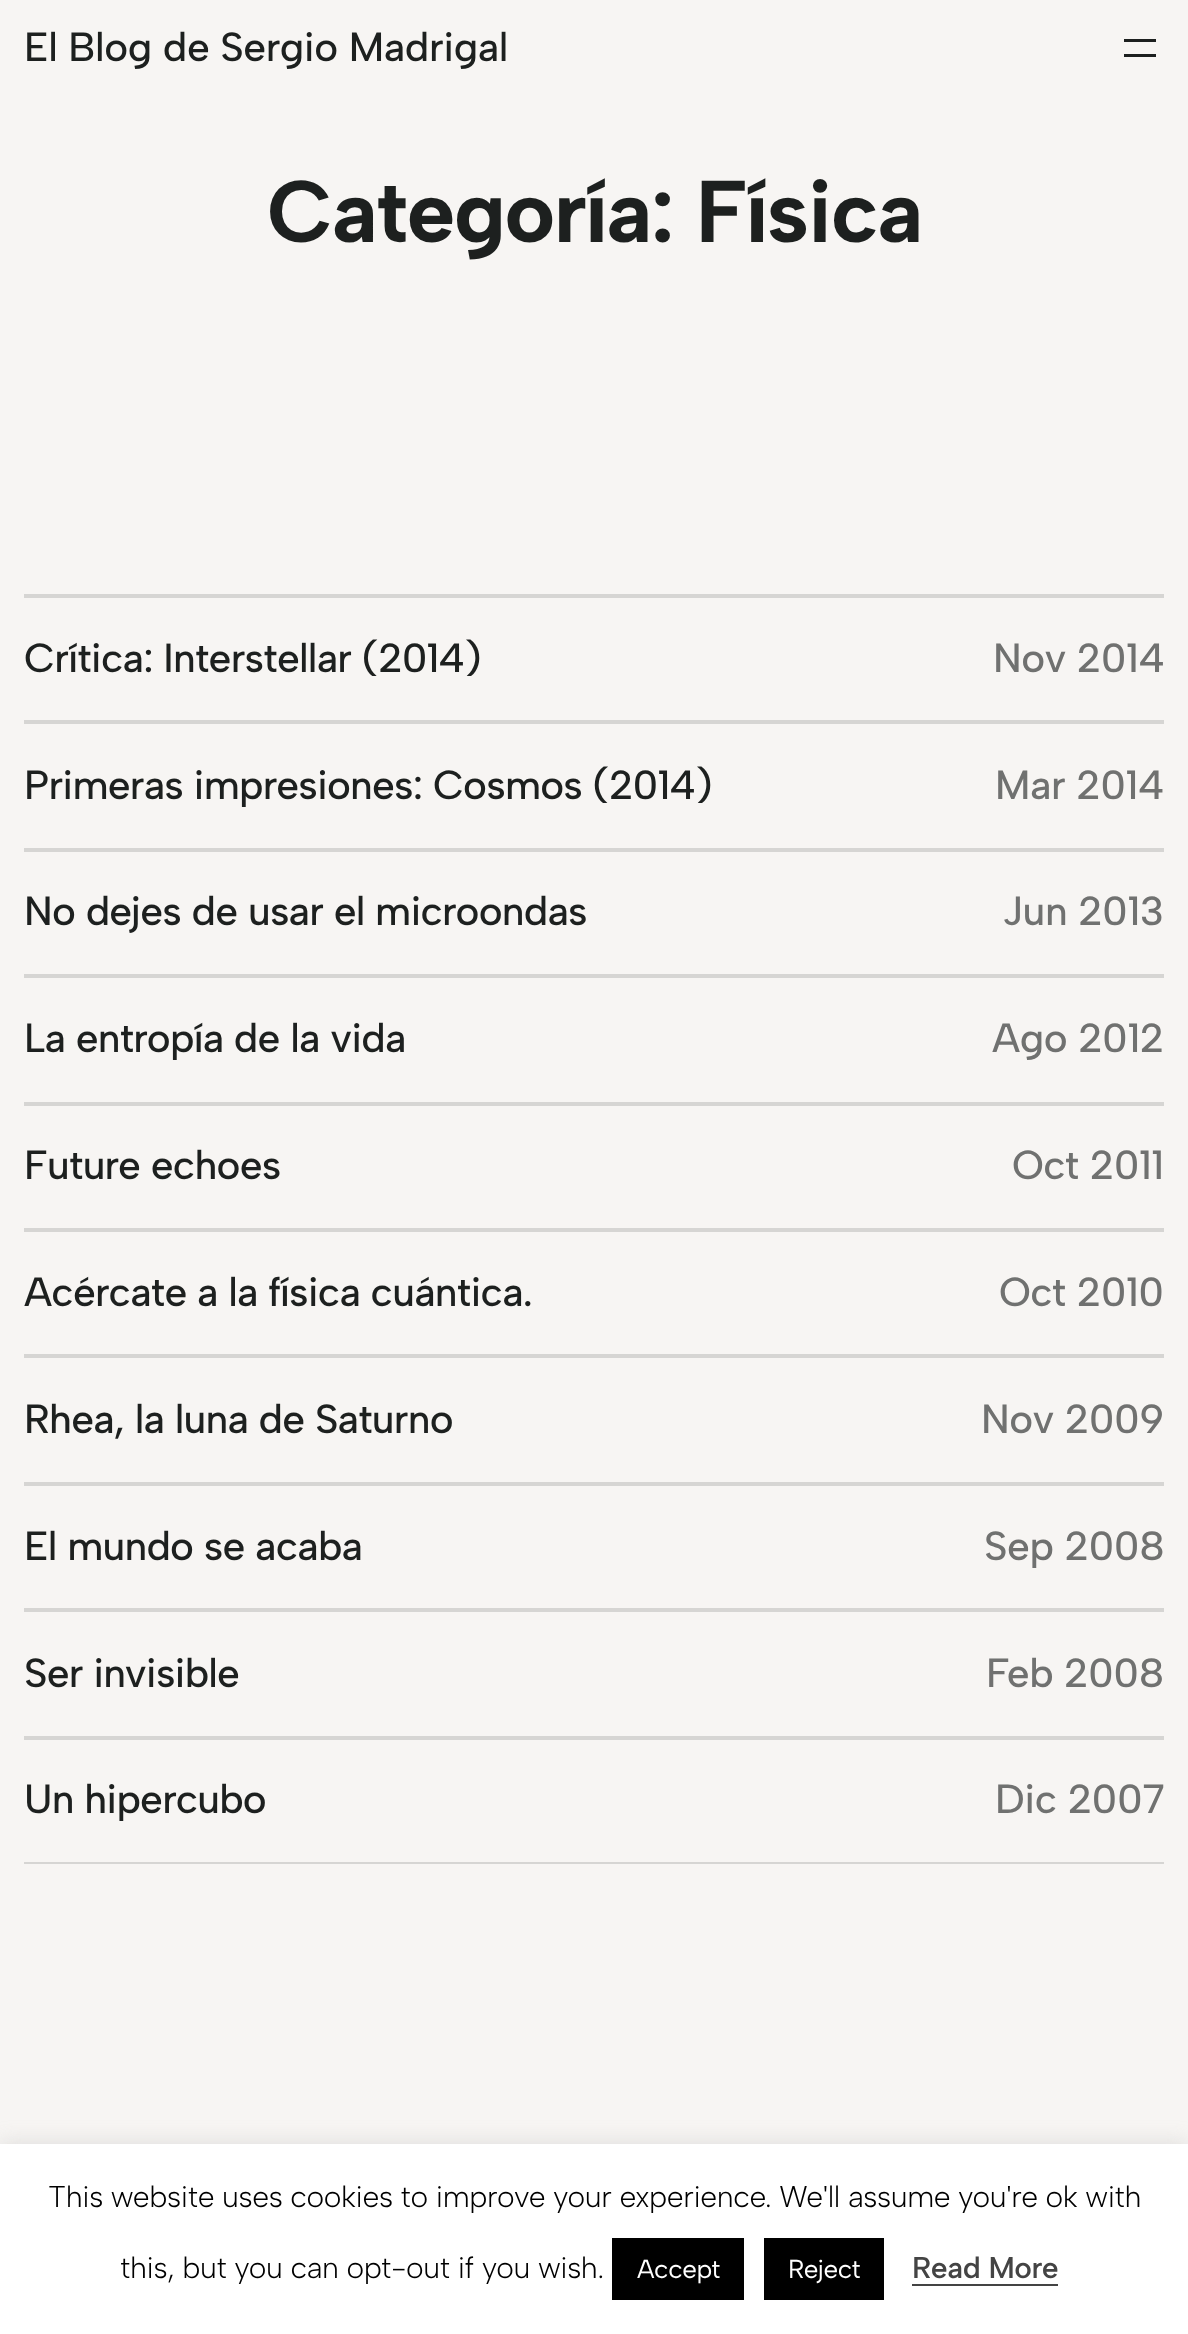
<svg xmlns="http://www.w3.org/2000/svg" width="1188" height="2334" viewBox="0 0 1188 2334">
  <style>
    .t1 { font: 500 40.6px Albert Sans; letter-spacing: -0.4px; fill: #1d201f; }
    .t2 { font: bold 87.5px Albert Sans; letter-spacing: -1.75px; fill: #1d201f; }
    .t3 { font: 500 40.6px Albert Sans; letter-spacing: -0.8px; fill: #1d201f; }
    .t4 { font: 500 40.6px Albert Sans; letter-spacing: -0.4px; fill: #707170; }
    .t5 { font: 300 30px Albert Sans; letter-spacing: -0.4px; fill: #000; }
    .t6 { font: 26px Albert Sans; letter-spacing: -0.4px; fill: #fff; }
    .t7 { font: 500 30px 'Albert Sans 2'; letter-spacing: -0.4px; fill: #444; }
  </style>
  <rect width="100%" height="100%" fill="#f7f5f3"/>
  <text x="24" y="61" class="t1">El Blog de Sergio Madrigal</text>
  <rect x="1124" y="39" width="32" height="3" fill="#1d201f"/>
  <rect x="1124" y="54" width="32" height="3" fill="#1d201f"/>
  <text x="267" y="242" class="t2">Categoría: Física</text>
  <rect x="24" y="1862" width="1140" height="2" fill="#d6d5d3"/>
  <rect x="24" y="594" width="1140" height="4" fill="#d6d5d3"/>
  <text x="24" y="672" class="t3">Crítica: Interstellar (2014)</text>
  <text x="993" y="672" class="t4">Nov 2014</text>
  <rect x="24" y="720" width="1140" height="4" fill="#d6d5d3"/>
  <text x="24" y="799" class="t3">Primeras impresiones: Cosmos (2014)</text>
  <text x="995" y="799" class="t4">Mar 2014</text>
  <rect x="24" y="848" width="1140" height="4" fill="#d6d5d3"/>
  <text x="24" y="925" class="t3">No dejes de usar el microondas</text>
  <text x="1002" y="925" class="t4">Jun 2013</text>
  <rect x="24" y="974" width="1140" height="4" fill="#d6d5d3"/>
  <text x="24" y="1052" class="t3">La entropía de la vida</text>
  <text x="992" y="1052" class="t4">Ago 2012</text>
  <rect x="24" y="1102" width="1140" height="4" fill="#d6d5d3"/>
  <text x="24" y="1179" class="t3">Future echoes</text>
  <text x="1012" y="1179" class="t4">Oct 2011</text>
  <rect x="24" y="1228" width="1140" height="4" fill="#d6d5d3"/>
  <text x="24" y="1306" class="t3">Acércate a la física cuántica.</text>
  <text x="999" y="1306" class="t4">Oct 2010</text>
  <rect x="24" y="1354" width="1140" height="4" fill="#d6d5d3"/>
  <text x="24" y="1433" class="t3">Rhea, la luna de Saturno</text>
  <text x="981" y="1433" class="t4">Nov 2009</text>
  <rect x="24" y="1482" width="1140" height="4" fill="#d6d5d3"/>
  <text x="24" y="1560" class="t3">El mundo se acaba</text>
  <text x="984" y="1560" class="t4">Sep 2008</text>
  <rect x="24" y="1608" width="1140" height="4" fill="#d6d5d3"/>
  <text x="24" y="1687" class="t3">Ser invisible</text>
  <text x="986" y="1687" class="t4">Feb 2008</text>
  <rect x="24" y="1736" width="1140" height="4" fill="#d6d5d3"/>
  <text x="24" y="1813" class="t3">Un hipercubo</text>
  <text x="995" y="1813" class="t4">Dic 2007</text>
  <rect x="0" y="2142" width="1188" height="190" fill="#acabab4d" filter="blur(10px)"/>
  <rect x="0" y="2144" width="1188" height="190" fill="#fff"/>
  <text x="48" y="2207" class="t5">This website uses cookies to improve your experience. We'll assume you're ok with</text>
  <text x="120" y="2278" class="t5">this, but you can opt-out if you wish.</text>
  <rect x="612" y="2238" width="132" height="62" fill="#000"/>
  <text x="637" y="2278" class="t6">Accept</text>
  <rect x="764" y="2238" width="120" height="62" fill="#000"/>
  <text x="788" y="2278" class="t6">Reject</text>
  <text x="912" y="2278" class="t7">Read More</text>
  <rect x="912" y="2284" width="146" height="2" fill="#444"/>
</svg>
